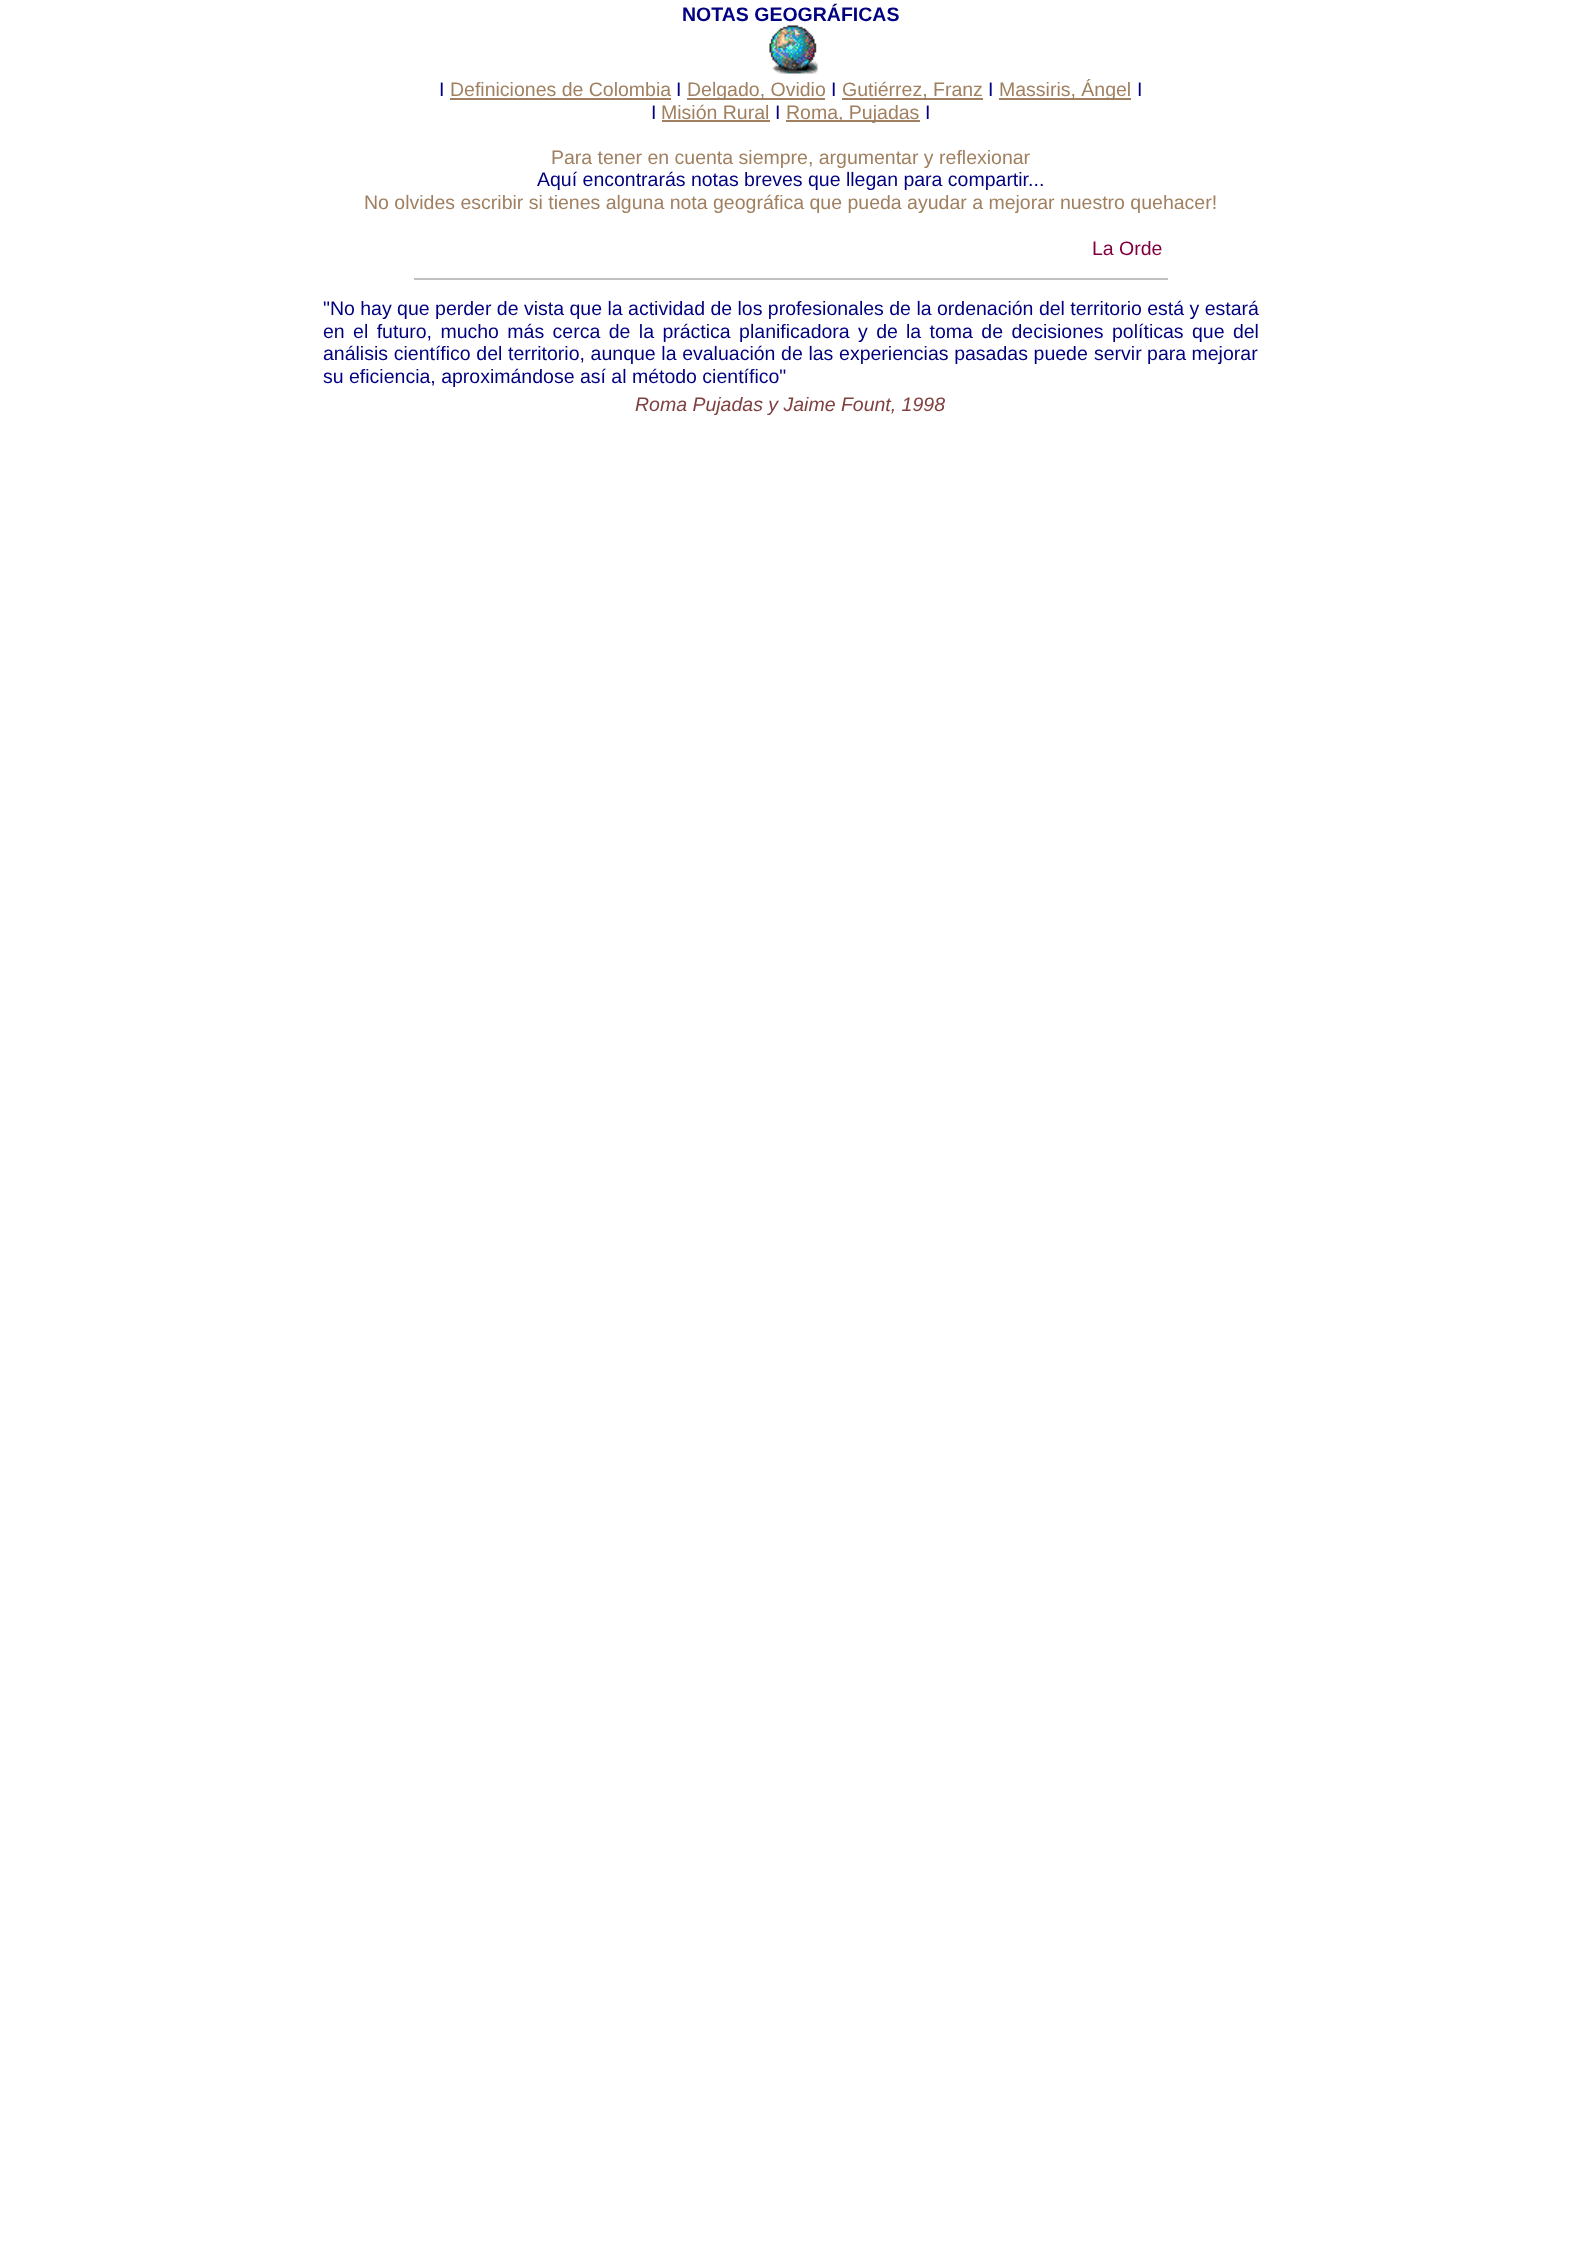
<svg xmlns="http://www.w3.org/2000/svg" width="1581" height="2249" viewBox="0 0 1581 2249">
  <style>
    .t1 { font: bold 19.5px Liberation Sans; fill: #000080; }
    .t2 { font: 19.5px Liberation Sans; fill: #000080; }
    .t3 { font: 19.5px Liberation Sans; fill: #a08060; }
    .t4 { font: 19.5px Liberation Sans; fill: #800040; }
    .t5 { font: italic 19.5px Liberation Sans; fill: #804040; }
  </style>
  <rect width="100%" height="100%" fill="#fff"/>
  <text x="682" y="21" class="t1">NOTAS GEOGRÁFICAS</text>
  <image x="769" y="25" width="49" height="49" href="images/1.png"/>
  <text x="439" y="96" class="t2">I</text>
  <text x="450" y="96" class="t3">Definiciones de Colombia</text>
  <rect x="450" y="98" width="221" height="2" fill="#a08060"/>
  <text x="676" y="96" class="t2">I</text>
  <rect x="687" y="98" width="138" height="2" fill="#a08060"/>
  <text x="687" y="96" class="t3">Delgado, Ovidio</text>
  <text x="831" y="96" class="t2">I</text>
  <rect x="842" y="98" width="141" height="2" fill="#a08060"/>
  <text x="842" y="96" class="t3">Gutiérrez, Franz</text>
  <text x="988" y="96" class="t2">I</text>
  <rect x="999" y="98" width="132" height="2" fill="#a08060"/>
  <text x="999" y="96" class="t3">Massiris, Ángel</text>
  <text x="1137" y="96" class="t2">I</text>
  <text x="651" y="119" class="t2">I</text>
  <text x="661" y="119" class="t3">Misión Rural</text>
  <rect x="662" y="120" width="108" height="2" fill="#a08060"/>
  <text x="775" y="119" class="t2">I</text>
  <rect x="786" y="120" width="134" height="2" fill="#a08060"/>
  <text x="786" y="119" class="t3">Roma, Pujadas</text>
  <text x="925" y="119" class="t2">I</text>
  <text x="551" y="164" class="t3">Para tener en cuenta siempre, argumentar y reflexionar</text>
  <text x="537" y="186" class="t2">Aquí encontrarás notas breves que llegan para compartir...</text>
  <text x="364" y="209" class="t3">No olvides escribir si tienes alguna nota geográfica que pueda ayudar a mejorar nuestro quehacer!</text>
  <text x="1092" y="255" class="t4">La Orde</text>
  <rect x="414" y="278" width="754" height="2" fill="#c0c0c0"/>
  <text x="323" y="315" class="t2">"No hay que perder de vista que la actividad de los profesionales de la ordenación del territorio está y estará</text>
  <text x="323" y="338" word-spacing="3" class="t2">en el futuro, mucho más cerca de la práctica planificadora y de</text>
  <text x="906" y="338" word-spacing="3" class="t2">la toma de decisiones políticas que del</text>
  <text x="323" y="360" word-spacing="0.25" class="t2">análisis científico del</text>
  <text x="508" y="360" word-spacing="0.25" class="t2">territorio, aunque la evaluación de las experiencias pasadas puede</text>
  <text x="1094" y="360" class="t2">servir para mejorar</text>
  <text x="323" y="383" class="t2">su eficiencia, aproximándose así al método científico"</text>
  <text x="635" y="411" class="t5">Roma Pujadas y Jaime Fount, 1998</text>
</svg>
